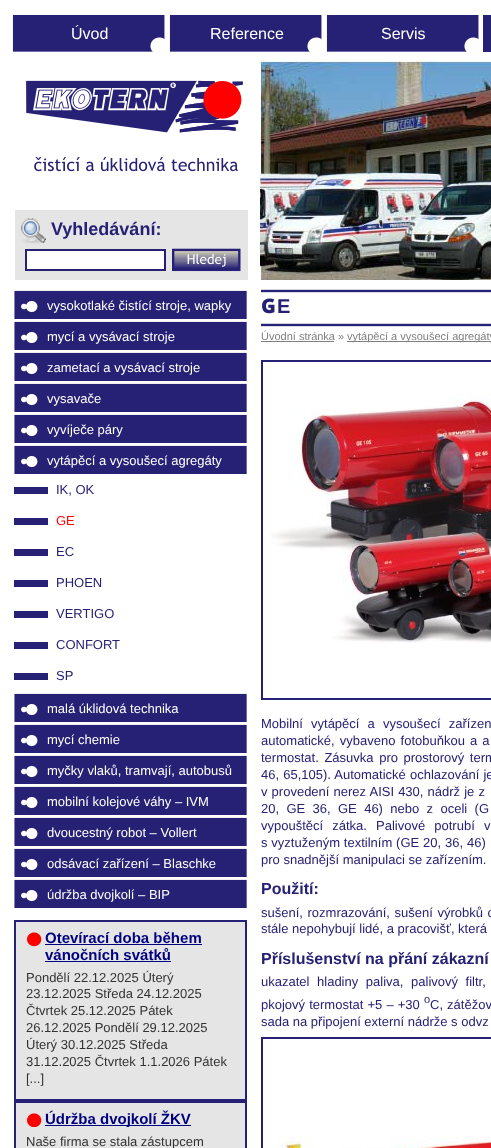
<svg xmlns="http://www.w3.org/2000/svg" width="491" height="1148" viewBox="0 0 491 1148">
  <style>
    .t1 { font: 16px Liberation Sans; fill: #fff; }
    .t2 { font: 11px Liberation Sans; fill: #808080; }
    .t3 { font: bold 18px Liberation Sans; fill: #262175; }
    .t4 { font: 13px Liberation Sans; fill: #fff; }
    .t5 { font: 13px Liberation Sans; fill: #262175; }
    .t6 { font: 13px Liberation Sans; fill: #f00; }
    .t7 { font: bold 15px Liberation Sans; fill: #000080; }
    .t8 { font: 13px Liberation Sans; fill: #333; }
    .t9 { font: 900 20px Noto Sans; fill: #262175; }
    .t10 { font: bold 20px Liberation Sans; fill: #262175; }
    .t11 { font: bold 16px Liberation Sans; fill: #262175; }
    .t12 { font: 11px Liberation Sans; fill: #262175; }
  </style>
  <rect width="100%" height="100%" fill="#fff"/>
  <image x="12" y="15" width="153" height="37" href="images/1.png"/>
  <text x="71" y="39" class="t1">Úvod</text>
  <image x="169" y="15" width="153" height="37" href="images/1.png"/>
  <text x="210" y="39" class="t1">Reference</text>
  <image x="326" y="15" width="153" height="37" href="images/1.png"/>
  <text x="381" y="39" class="t1">Servis</text>
  <rect x="483" y="15" width="8" height="37" fill="#262175"/>
  <text x="261" y="340" class="t2">Úvodní stránka »</text>
  <rect x="261" y="341" width="73" height="1" fill="#808080"/>
  <rect x="347" y="341" width="144" height="1" fill="#808080"/>
  <text x="347" y="340" class="t2">vytápěcí a vysoušecí agregáty</text>
  <image x="260" y="60" width="231" height="220" href="images/2.png"/>
  <image x="26" y="80" width="217" height="92" href="images/3.png"/>
  <rect x="15" y="210" width="233" height="70" fill="#e5e5e5"/>
  <image x="21" y="218" width="25" height="26" href="images/4.png"/>
  <text x="51" y="235" class="t3">Vyhledávání:</text>
  <rect x="26" y="250" width="139" height="20" fill="#fff" stroke="#262175" stroke-width="2"/>
  <image x="172" y="248" width="69" height="24" href="images/5.png"/>
  <image x="14" y="290" width="233" height="29" href="images/6.png"/>
  <text x="47" y="310" class="t4">vysokotlaké čistící stroje, wapky</text>
  <image x="14" y="321" width="233" height="29" href="images/6.png"/>
  <text x="47" y="341" class="t4">mycí a vysávací stroje</text>
  <image x="14" y="352" width="233" height="29" href="images/6.png"/>
  <text x="47" y="372" class="t4">zametací a vysávací stroje</text>
  <image x="14" y="383" width="233" height="29" href="images/6.png"/>
  <text x="47" y="403" class="t4">vysavače</text>
  <image x="14" y="414" width="233" height="29" href="images/6.png"/>
  <text x="47" y="434" class="t4">vyvíječe páry</text>
  <image x="14" y="445" width="233" height="29" href="images/6.png"/>
  <text x="47" y="465" class="t4">vytápěcí a vysoušecí agregáty</text>
  <rect x="14" y="487" width="34" height="7" fill="#262175"/>
  <text x="56" y="494" class="t5">IK, OK</text>
  <rect x="14" y="518" width="34" height="7" fill="#262175"/>
  <text x="56" y="525" class="t6">GE</text>
  <rect x="14" y="549" width="34" height="7" fill="#262175"/>
  <text x="56" y="556" class="t5">EC</text>
  <rect x="14" y="580" width="34" height="7" fill="#262175"/>
  <text x="56" y="587" class="t5">PHOEN</text>
  <rect x="14" y="611" width="34" height="7" fill="#262175"/>
  <text x="56" y="618" class="t5">VERTIGO</text>
  <rect x="14" y="642" width="34" height="7" fill="#262175"/>
  <text x="56" y="649" class="t5">CONFORT</text>
  <rect x="14" y="673" width="34" height="7" fill="#262175"/>
  <text x="56" y="680" class="t5">SP</text>
  <image x="14" y="693" width="233" height="29" href="images/6.png"/>
  <text x="47" y="713" class="t4">malá úklidová technika</text>
  <image x="14" y="724" width="233" height="29" href="images/6.png"/>
  <text x="47" y="744" class="t4">mycí chemie</text>
  <image x="14" y="755" width="233" height="29" href="images/6.png"/>
  <text x="47" y="775" class="t4">myčky vlaků, tramvají, autobusů</text>
  <image x="14" y="786" width="233" height="29" href="images/6.png"/>
  <text x="47" y="806" class="t4">mobilní kolejové váhy – IVM</text>
  <image x="14" y="817" width="233" height="29" href="images/6.png"/>
  <text x="47" y="837" class="t4">dvoucestný robot – Vollert</text>
  <image x="14" y="848" width="233" height="29" href="images/6.png"/>
  <text x="47" y="868" class="t4">odsávací zařízení – Blaschke</text>
  <image x="14" y="879" width="233" height="29" href="images/6.png"/>
  <text x="47" y="899" class="t4">údržba dvojkolí – BIP</text>
  <rect x="15" y="921" width="231" height="179" fill="#e5e5e5" stroke="#262175" stroke-width="2"/>
  <image x="27" y="932" width="15" height="15" href="images/7.png"/>
  <text x="45" y="943" class="t7">Otevírací doba během</text>
  <rect x="45" y="944" width="157" height="1" fill="#000080"/>
  <text x="45" y="960" class="t7">vánočních svátků</text>
  <rect x="45" y="961" width="126" height="1" fill="#000080"/>
  <text x="26" y="982" class="t8">Pondělí 22.12.2025 Úterý</text>
  <text x="26" y="998" class="t8">23.12.2025 Středa 24.12.2025</text>
  <text x="26" y="1015" class="t8">Čtvrtek 25.12.2025 Pátek</text>
  <text x="26" y="1032" class="t8">26.12.2025 Pondělí 29.12.2025</text>
  <text x="26" y="1049" class="t8">Úterý 30.12.2025 Středa</text>
  <text x="26" y="1066" class="t8">31.12.2025 Čtvrtek 1.1.2026 Pátek</text>
  <text x="26" y="1083" class="t8">[...]</text>
  <rect x="15" y="1102" width="231" height="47" fill="#e5e5e5" stroke="#262175" stroke-width="2"/>
  <image x="27" y="1113" width="15" height="14" href="images/8.png"/>
  <rect x="45" y="1125" width="146" height="1" fill="#000080"/>
  <text x="45" y="1124" class="t7">Údržba dvojkolí ŽKV</text>
  <text x="26" y="1146" class="t8">Naše firma se stala zástupcem</text>
  <image x="261" y="289" width="230" height="38" href="images/9.png"/>
  <text x="261" y="313" class="t9">G</text>
  <text x="277" y="313" class="t10">E</text>
  <rect x="262" y="361" width="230" height="338" fill="none" stroke="#262175" stroke-width="2"/>
  <image x="271" y="394" width="220" height="249" href="images/10.png"/>
  <text x="261" y="728" word-spacing="4.5" class="t5">Mobilní vytápěcí a vysoušecí zařízen</text>
  <text x="261" y="745" word-spacing="1.5" class="t5">automatické, vybaveno fotobuňkou a a</text>
  <text x="261" y="762" word-spacing="2" class="t5">termostat. Zásuvka pro prostorový term</text>
  <text x="261" y="779" word-spacing="0.5" class="t5">46, 65,105). Automatické ochlazování je</text>
  <text x="261" y="796" word-spacing="0.5" class="t5">v provedení nerez AISI 430, nádrž je z</text>
  <text x="261" y="813" word-spacing="3.75" class="t5">20, GE 36, GE 46) nebo z oceli (G</text>
  <text x="261" y="830" word-spacing="5.5" class="t5">vypouštěcí zátka. Palivové potrubí v</text>
  <text x="261" y="847" word-spacing="0.25" class="t5">s vyztuženým textilním (GE 20, 36, 46)</text>
  <text x="261" y="864" class="t5">pro snadnější manipulaci se zařízením.</text>
  <text x="261" y="894" class="t11">Použití:</text>
  <text x="261" y="917" word-spacing="1" class="t5">sušení, rozmrazování, sušení výrobků o</text>
  <text x="261" y="933" class="t5">stále nepohybují lidé, a pracovišť, která</text>
  <text x="261" y="964" class="t11">Příslušenství na přání zákazní</text>
  <text x="261" y="986" word-spacing="4" class="t5">ukazatel hladiny paliva, palivový filtr,</text>
  <text x="261" y="1009" word-spacing="0.5" class="t5">pkojový termostat +5 – +30</text>
  <text x="424" y="1003" class="t12">o</text>
  <text x="430" y="1009" word-spacing="0.5" class="t5">C, zátěžov</text>
  <text x="261" y="1026" class="t5">sada na připojení externí nádrže s odvz</text>
  <rect x="262" y="1038" width="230" height="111" fill="none" stroke="#262175" stroke-width="2"/>
  <image x="279" y="1135" width="212" height="13" href="images/11.png"/>
</svg>
